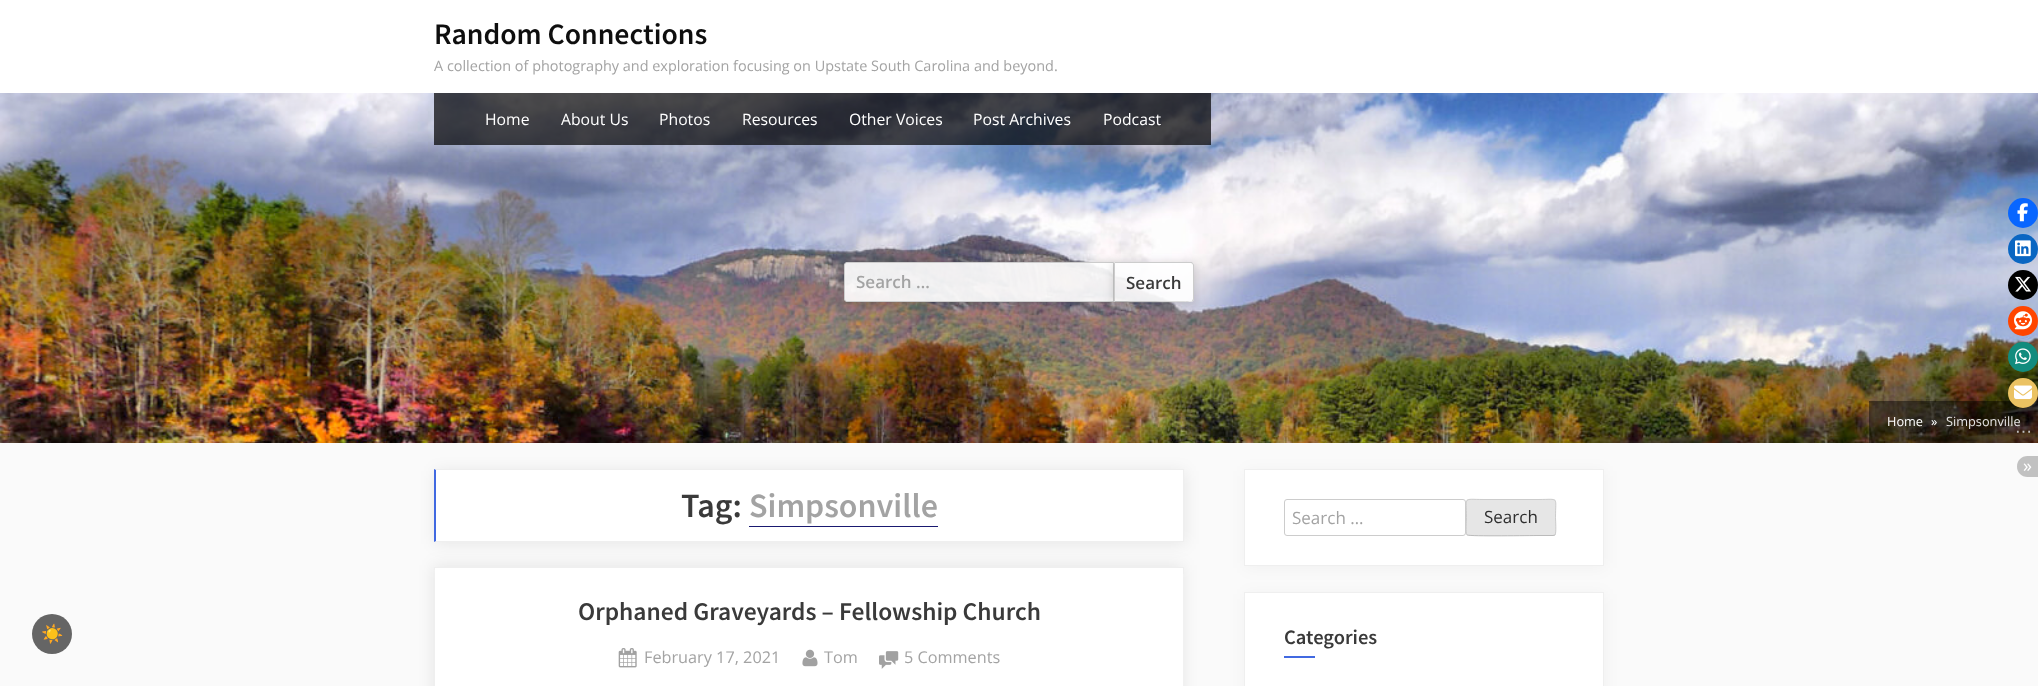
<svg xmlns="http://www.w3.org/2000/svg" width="2038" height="686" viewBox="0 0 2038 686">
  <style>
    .t1 { font: 600 29.75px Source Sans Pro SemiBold; fill: #0e0e0e; }
    .t2 { font: 14.45px Open Sans; fill: #a3a3a3; }
    .t3 { font: 15.75px Open Sans; fill: #fff; }
    .t4 { font: 600 17px Open Sans; fill: #a3a3a3; }
    .t5 { font: 600 17px Open Sans; fill: #3a3a3a; }
    .t6 { font: 12.75px Open Sans; fill: #fff; }
    .t7 { font: 12.75px Open Sans; fill: #e7e5e5; }
    .t8 { font: 600 34px Source Sans Pro SemiBold; fill: #3a3a3a; }
    .t9 { font: 600 34px Source Sans Pro SemiBold; fill: #a3a3a3; }
    .t10 { font: 600 25.5px Source Sans Pro SemiBold; fill: #3a3a3a; }
    .t11 { font: 16.25px Open Sans; fill: #a3a3a3; }
    .t12 { font: 17px Open Sans; fill: #a3a3a3; }
    .t13 { font: 17px Open Sans; fill: #2e2e2e; }
    .t14 { font: 600 20.5px Source Sans Pro SemiBold; fill: #3a3a3a; }
    .t15 { font: 17px DejaVu Sans; fill: #c1c1c1; }
    .t16 { font: 18px Open Sans; fill: #fff; }
    .t17 { font: bold 18px Noto Color Emoji; fill: #eee; }
  </style>
  <defs>
    <clipPath id="clip1"><path d="M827 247H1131V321H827ZM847 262H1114V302H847C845.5 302 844 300.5 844 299V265C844 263.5 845.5 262 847 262Z" clip-rule="evenodd"/></clipPath>
    <clipPath id="clip2"><path d="M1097 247H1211V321H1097ZM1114 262H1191C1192.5 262 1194 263.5 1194 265V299C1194 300.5 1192.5 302 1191 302H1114Z" clip-rule="evenodd"/></clipPath>
  </defs>
  <rect width="100%" height="100%" fill="#fafafa"/>
  <rect x="0" y="0" width="2038" height="93" fill="#fff"/>
  <text x="434" y="44" class="t1">Random Connections</text>
  <text x="434" y="71" class="t2">A collection of photography and exploration focusing on Upstate South Carolina and beyond.</text>
  <image x="0" y="93" width="2038" height="350" href="images/1.png"/>
  <rect x="434" y="93" width="777" height="52" fill="#000000b3"/>
  <text x="485" y="125" class="t3">Home</text>
  <text x="561" y="125" class="t3">About Us</text>
  <text x="659" y="125" class="t3">Photos</text>
  <text x="742" y="125" class="t3">Resources</text>
  <text x="849" y="125" class="t3">Other Voices</text>
  <text x="973" y="125" class="t3">Post Archives</text>
  <text x="1103" y="125" class="t3">Podcast</text>
  <g clip-path="url(#clip1)">
    <rect x="843" y="263" width="272" height="42" rx="4" fill="#00000026" filter="blur(5px)"/>
  </g>
  <path d="M847 262.5H1113.5V301.5H847C845.5 301.5 844.5 300.5 844.5 299V265C844.5 263.5 845.5 262.5 847 262.5Z" fill="#ffffffe6" stroke="#ccc"/>
  <text x="856" y="288" class="t4">Search …</text>
  <g clip-path="url(#clip2)">
    <rect x="1113" y="263" width="82" height="42" rx="4" fill="#00000026" filter="blur(5px)"/>
  </g>
  <path d="M1114 262H1191C1192.5 262 1194 263.5 1194 265V299C1194 300.5 1192.5 302 1191 302H1114Z" fill="#ffffffe6"/>
  <path d="M1115 263L1114 262H1192L1193 263V264L1191 263Z" fill="#ccc"/>
  <path d="M1194 299V265C1194 264.5 1193.5 263.5 1193 263L1192.5 264L1193 265V299L1192 300.5L1193 301.5C1193.5 301 1194 300 1194 299Z" fill="#ccc"/>
  <path d="M1193 301C1191 303 1123 302 1114 302L1115 301C1123 301 1191 302 1192 301Z" fill="#bbb"/>
  <path d="M1114 262.5V302H1114.5L1115.5 301H1115V263.5Z" fill="#ccc"/>
  <text x="1126" y="289" class="t5">Search</text>
  <rect x="1869" y="401" width="169" height="42" fill="#00000073"/>
  <text x="1887" y="426" class="t6">Home</text>
  <text x="1931" y="426" class="t6">»</text>
  <text x="1946" y="426" class="t7">Simpsonville</text>
  <rect x="435" y="471" width="750" height="73" fill="#00000014" filter="blur(8px)"/>
  <rect x="436" y="470" width="747" height="71" fill="#fff"/>
  <path d="M434 469H1184L1183 470H436Z" fill="#efefef"/>
  <rect x="1183" y="469" width="1" height="73" fill="#efefef"/>
  <path d="M1184 542H434L436 541H1183Z" fill="#efefef"/>
  <path d="M434 542V469L436 470V541Z" fill="#4169e1"/>
  <text x="681" y="517" class="t8">Tag:</text>
  <text x="749" y="517" class="t9">Simpsonville</text>
  <rect x="749" y="526" width="189" height="1" fill="#191970"/>
  <rect x="433" y="565" width="750" height="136" fill="#00000014" filter="blur(8px)"/>
  <rect x="435" y="568" width="748" height="118" fill="#fff"/>
  <rect x="434" y="567" width="750" height="1" fill="#efefef"/>
  <rect x="1183" y="567" width="1" height="7" fill="#efefef"/>
  <rect x="434" y="567" width="1" height="3" fill="#efefef"/>
  <text x="578" y="620" class="t10">Orphaned Graveyards – Fellowship Church</text>
  <image x="618" y="648" width="19" height="20" href="images/2.png"/>
  <text x="644" y="663" class="t11">February 17, 2021</text>
  <image x="802" y="649" width="16" height="18" href="images/3.png"/>
  <text x="824" y="663" class="t11">Tom</text>
  <image x="879" y="651" width="20" height="18" href="images/4.png"/>
  <text x="904" y="663" class="t11">5 Comments</text>
  <rect x="1245" y="471" width="360" height="97" fill="#0000000a" filter="blur(8px)"/>
  <rect x="1244.5" y="469.5" width="359" height="96" fill="#fff" stroke="#efefef"/>
  <rect x="1284.5" y="499.5" width="181" height="36" rx="2.5" fill="none" stroke="#ccc"/>
  <text x="1292" y="524" class="t12">Search …</text>
  <rect x="1466" y="499" width="90" height="37" rx="3" fill="#e6e6e6"/>
  <path d="M1555 535L1553 535.5H1539C1531.5 535.5 1469.5 536.5 1467.5 535H1467" fill="none" stroke="#bbb"/>
  <path d="M1467 535C1465.5 533 1466.5 520.5 1466.5 517.5C1466.5 496 1462.5 499.5 1483 499.5H1539C1559.5 499.5 1555.5 496 1555.5 517.5C1555.5 520.5 1556.5 533 1555 535" fill="none" stroke="#ccc"/>
  <text x="1484" y="523" class="t13">Search</text>
  <rect x="1245" y="594" width="360" height="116" fill="#0000000a" filter="blur(8px)"/>
  <rect x="1244.5" y="592.5" width="359" height="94" fill="#fff" stroke="#efefef"/>
  <text x="1284" y="644" class="t14">Categories</text>
  <rect x="1284" y="656" width="31" height="2" fill="#4169e1"/>
  <circle cx="2023" cy="213" r="15" fill="#0866ff"/>
  <image x="2017" y="203" width="11" height="19" href="images/5.png"/>
  <circle cx="2023" cy="249" r="15" fill="#0a66c2"/>
  <image x="2015" y="240" width="16" height="17" href="images/6.png"/>
  <circle cx="2023" cy="285" r="15" fill="#000"/>
  <image x="2015" y="276" width="16" height="16" href="images/7.png"/>
  <circle cx="2023" cy="321" r="15" fill="#ff4500"/>
  <image x="2014" y="311" width="18" height="19" href="images/8.png"/>
  <circle cx="2023" cy="357" r="15" fill="#128c7e"/>
  <image x="2015" y="348" width="16" height="17" href="images/9.png"/>
  <circle cx="2023" cy="393" r="15" fill="#ebc262"/>
  <image x="2014" y="385" width="18" height="14" href="images/10.png"/>
  <text x="2015" y="437" class="t15">⋯</text>
  <path d="M2027.5 456H2038V477H2027.5C2021.5 477 2017 472.5 2017 466.5C2017 460.5 2021.5 456 2027.5 456Z" fill="#c1c1c1"/>
  <text x="2023" y="472" class="t16">»</text>
  <circle cx="52" cy="634" r="20" fill="#656565"/>
  <text x="41" y="640" class="t17">☀️</text>
</svg>
